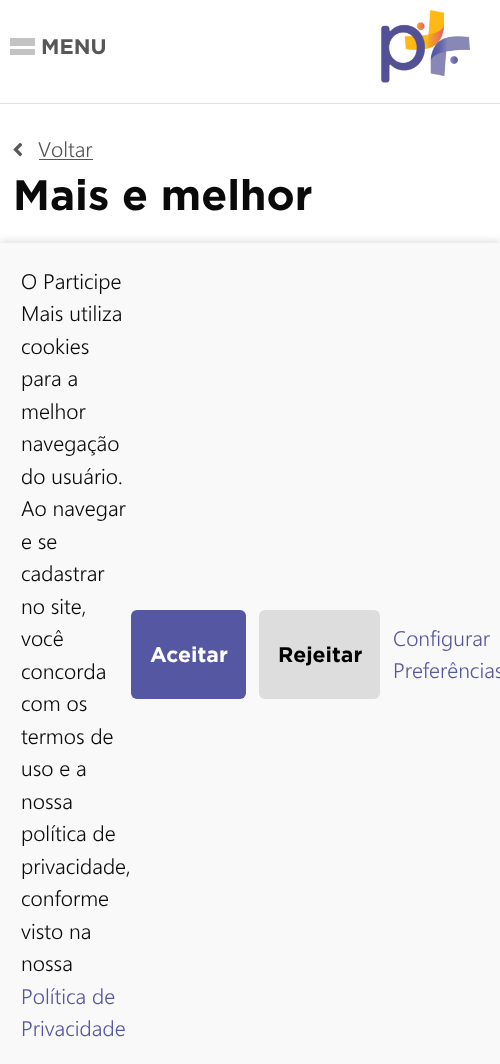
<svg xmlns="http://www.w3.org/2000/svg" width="500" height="1064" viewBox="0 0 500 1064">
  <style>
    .t1 { font: bold 21.25px Gotham; fill: #575756; }
    .t2 { font: 300 21.25px Segoe UI; fill: #575756; }
    .t3 { font: bold 42.5px Gotham; fill: #0a0a0a; }
    .t4 { font: 300 21.25px Segoe UI; fill: #0a0a0a; }
    .t5 { font: 300 21.25px Segoe UI; fill: #5657a2; }
    .t6 { font: bold 21.25px Gotham; fill: #fff; }
    .t7 { font: bold 21.25px Gotham; fill: #000; }
  </style>
  <rect width="100%" height="100%" fill="#fff"/>
  <rect x="0" y="103" width="500" height="1" fill="#dee0e3"/>
  <rect x="10" y="38" width="25" height="17" fill="#c3c3c3"/>
  <rect x="10" y="46" width="25" height="3" fill="#fff"/>
  <text x="41" y="54" class="t1">MENU</text>
  <image x="381" y="10" width="89" height="73" href="images/1.png"/>
  <image x="13" y="142" width="10" height="15" href="images/2.png"/>
  <text x="38" y="157" class="t2">Voltar</text>
  <rect x="39" y="159" width="54" height="1" fill="#575756"/>
  <text x="13" y="210" class="t3">Mais e melhor</text>
  <rect x="0" y="240" width="500" height="823" fill="#0000001a" filter="blur(3px)"/>
  <rect x="0" y="243" width="500" height="821" fill="#f9f9f9"/>
  <text x="21" y="289" class="t4">O Participe</text>
  <text x="21" y="321" class="t4">Mais utiliza</text>
  <text x="21" y="354" class="t4">cookies</text>
  <text x="21" y="386" class="t4">para a</text>
  <text x="21" y="419" class="t4">melhor</text>
  <text x="21" y="451" class="t4">navegação</text>
  <text x="21" y="484" class="t4">do usuário.</text>
  <text x="21" y="516" class="t4">Ao navegar</text>
  <text x="21" y="549" class="t4">e se</text>
  <text x="21" y="581" class="t4">cadastrar</text>
  <text x="21" y="614" class="t4">no site,</text>
  <text x="21" y="646" class="t4">você</text>
  <text x="21" y="679" class="t4">concorda</text>
  <text x="21" y="711" class="t4">com os</text>
  <text x="21" y="744" class="t4">termos de</text>
  <text x="21" y="776" class="t4">uso e a</text>
  <text x="21" y="809" class="t4">nossa</text>
  <text x="21" y="841" class="t4">política de</text>
  <text x="21" y="874" class="t4">privacidade,</text>
  <text x="21" y="906" class="t4">conforme</text>
  <text x="21" y="939" class="t4">visto na</text>
  <text x="21" y="971" class="t4">nossa</text>
  <text x="21" y="1004" class="t5">Política de</text>
  <text x="21" y="1036" class="t5">Privacidade</text>
  <rect x="131" y="610" width="115" height="89" rx="6" fill="#5657a2"/>
  <text x="150" y="662" class="t6">Aceitar</text>
  <rect x="259" y="610" width="121" height="89" rx="6" fill="#ddd"/>
  <text x="278" y="662" class="t7">Rejeitar</text>
  <text x="393" y="646" class="t5">Configurar</text>
  <text x="393" y="678" class="t5">Preferências</text>
</svg>
